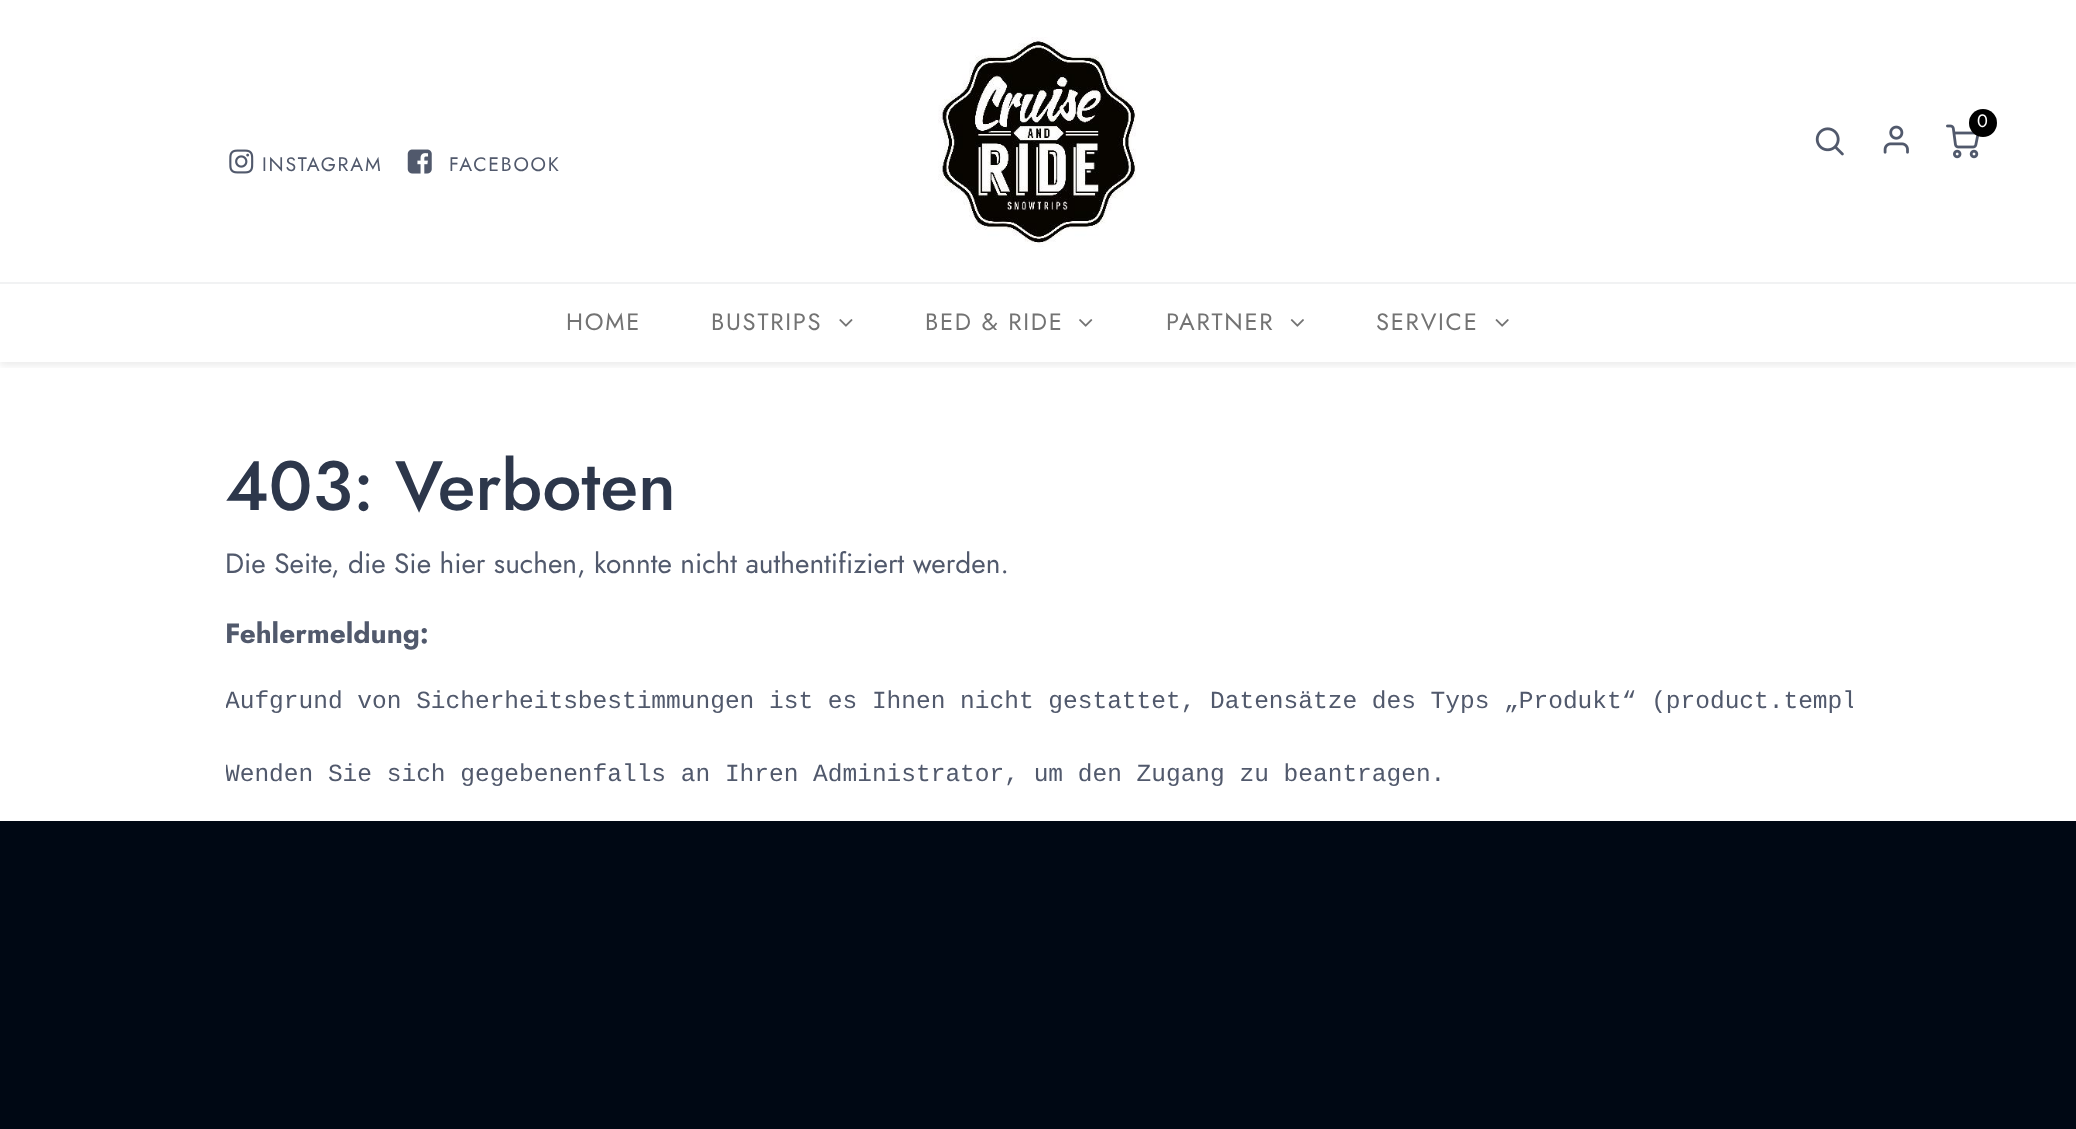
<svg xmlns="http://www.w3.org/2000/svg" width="2076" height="1129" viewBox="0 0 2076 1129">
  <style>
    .t1 { font: 18px Jost; fill: #fff; }
    .t2 { font: 19.5px Jost; letter-spacing: 1.75px; fill: #51596c; }
    .t3 { font: 23.75px Jost; letter-spacing: 1.75px; fill: #737373; }
    .t4 { font: 500 69.75px Jost; fill: #2d374b; }
    .t5 { font: 28px Jost; fill: #51596c; }
    .t6 { font: bold 28px Jost; fill: #51596c; }
    .t7 { font: 24.5px Liberation Mono; fill: #51596c; }
  </style>
  <defs>
    <clipPath id="clip1"><rect x="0" y="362" width="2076" height="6"/></clipPath>
    <clipPath id="clip2"><rect x="226" y="683" width="1627" height="110"/></clipPath>
  </defs>
  <rect width="100%" height="100%" fill="#fff"/>
  <g clip-path="url(#clip1)">
    <rect x="0" y="4" width="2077" height="362" fill="#00000012" filter="blur(3.5px)"/>
  </g>
  <image x="938" y="37" width="198" height="210" href="images/1.png"/>
  <image x="1946" y="124" width="33" height="35" href="images/2.png"/>
  <circle cx="1983" cy="123" r="14" fill="#000"/>
  <text x="1977" y="127" class="t1">0</text>
  <image x="1815" y="127" width="29" height="29" href="images/3.png"/>
  <image x="1883" y="125" width="26" height="29" href="images/4.png"/>
  <image x="229" y="149" width="25" height="25" href="images/5.png"/>
  <text x="262" y="171" class="t2">INSTAGRAM</text>
  <image x="407" y="149" width="25" height="25" href="images/6.png"/>
  <text x="449" y="171" class="t2">FACEBOOK</text>
  <rect x="0" y="282" width="2076" height="2" fill="#f1f2f3"/>
  <text x="566" y="330" class="t3">HOME</text>
  <text x="711" y="330" class="t3">BUSTRIPS</text>
  <image x="839" y="319" width="14" height="8" href="images/7.png"/>
  <text x="925" y="330" class="t3">BED &amp; RIDE</text>
  <image x="1079" y="319" width="14" height="8" href="images/8.png"/>
  <text x="1166" y="330" class="t3">PARTNER</text>
  <image x="1290" y="319" width="14" height="8" href="images/9.png"/>
  <text x="1376" y="330" class="t3">SERVICE</text>
  <image x="1495" y="319" width="14" height="8" href="images/10.png"/>
  <text x="225" y="510" class="t4">403: Verboten</text>
  <text x="225" y="573" class="t5">Die Seite, die Sie hier suchen, konnte nicht authentifiziert werden.</text>
  <text x="225" y="643" class="t6">Fehlermeldung:</text>
  <g clip-path="url(#clip2)">
    <text x="225" y="708" class="t7">Aufgrund von Sicherheitsbestimmungen ist es Ihnen nicht gestattet, Datensätze des Typs „Produkt“ (product.templ</text>
    <text x="225" y="781" class="t7">Wenden Sie sich gegebenenfalls an Ihren Administrator, um den Zugang zu beantragen.</text>
  </g>
  <rect x="0" y="821" width="2076" height="308" fill="#000814"/>
</svg>
